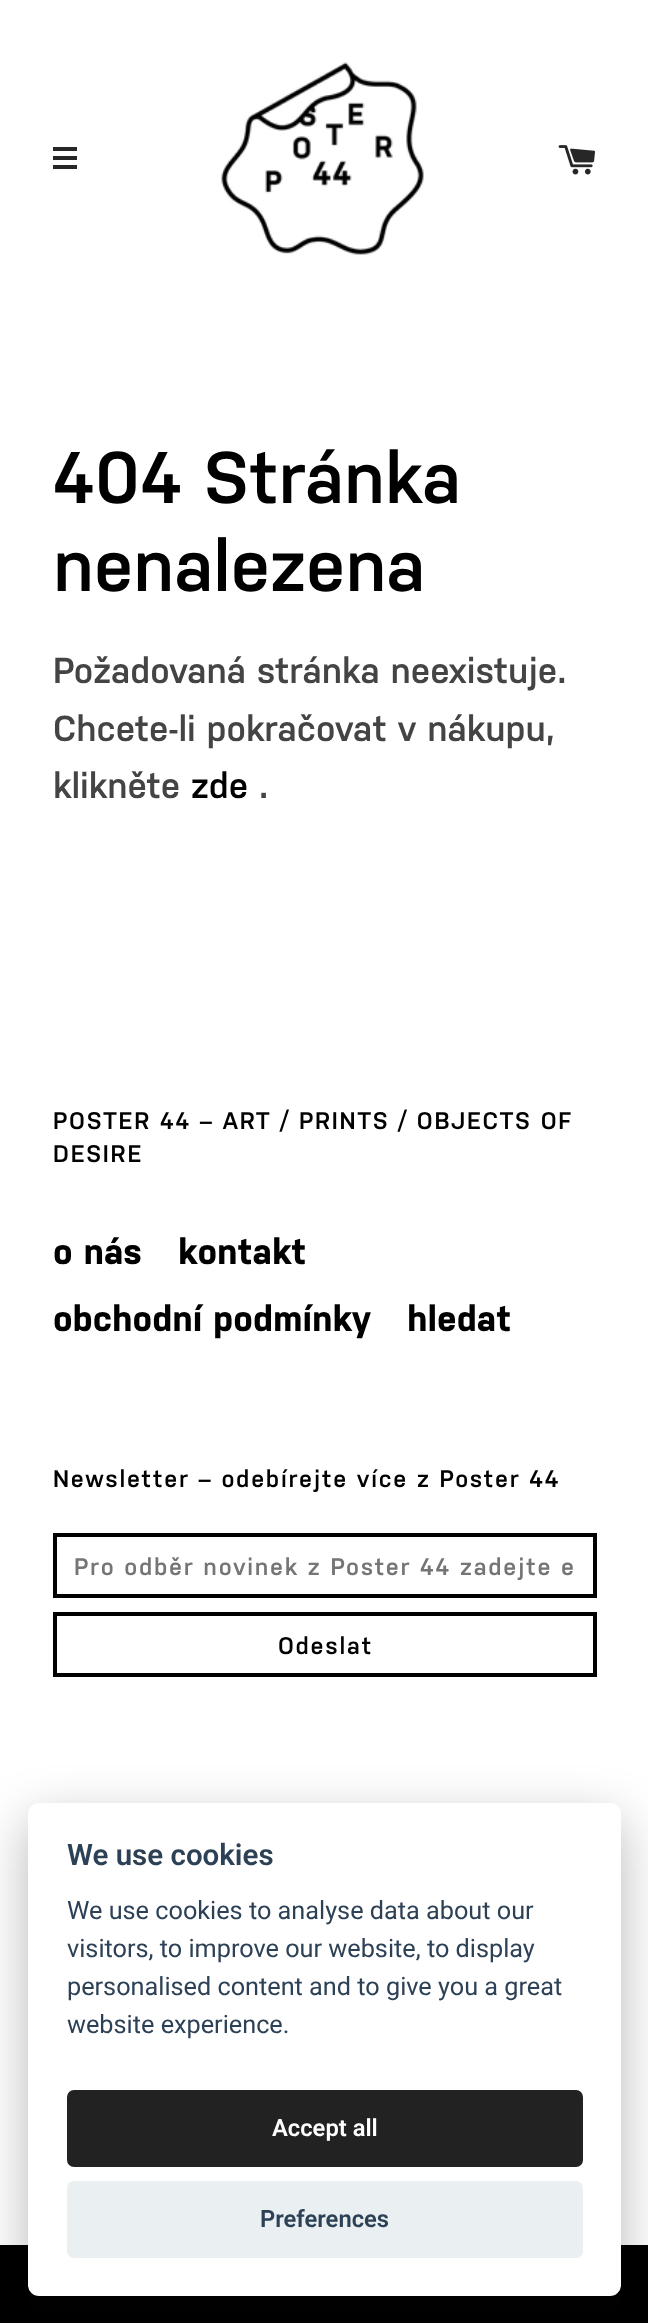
<svg xmlns="http://www.w3.org/2000/svg" width="648" height="2323" viewBox="0 0 648 2323">
  <style>
    .t1 { font: 600 72.75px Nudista; fill: #000; }
    .t2 { font: 600 36px Nudista; fill: #444; }
    .t3 { font: 600 36px Nudista; fill: #000; }
    .t4 { font: 600 24px Nudista; letter-spacing: 1.75px; fill: #000; }
    .t5 { font: bold 36px Nudista; fill: #000; }
    .t6 { font: 600 24px Nudista; letter-spacing: 1.75px; fill: #757575; }
    .t7 { font: 600 29.5px Roboto; fill: #2d4156; }
    .t8 { font: 25.25px Roboto; fill: #2d4156; }
    .t9 { font: 600 23.75px Roboto; fill: #fff; }
    .t10 { font: 600 23.75px Roboto; fill: #2d4156; }
  </style>
  <rect width="100%" height="100%" fill="#000"/>
  <rect x="0" y="0" width="648" height="2245" fill="#fff"/>
  <rect x="53" y="147" width="24" height="4" fill="#272727"/>
  <rect x="53" y="156" width="24" height="4" fill="#272727"/>
  <rect x="53" y="165" width="24" height="4" fill="#272727"/>
  <image x="221" y="62" width="203" height="193" href="images/1.png"/>
  <image x="558" y="145" width="37" height="30" href="images/2.png"/>
  <text x="53" y="503" class="t1">404 Stránka</text>
  <text x="53" y="591" class="t1">nenalezena</text>
  <text x="53" y="683" class="t2">Požadovaná stránka neexistuje.</text>
  <text x="53" y="741" class="t2">Chcete-li pokračovat v nákupu,</text>
  <text x="53" y="798" class="t2">klikněte</text>
  <text x="191" y="798" class="t3">zde</text>
  <text x="259" y="798" class="t2">.</text>
  <text x="53" y="1129" class="t4">POSTER 44 – ART / PRINTS / OBJECTS OF</text>
  <text x="53" y="1162" class="t4">DESIRE</text>
  <text x="53" y="1264" class="t5">o nás</text>
  <text x="178" y="1264" class="t5">kontakt</text>
  <text x="53" y="1331" class="t5">obchodní podmínky</text>
  <text x="407" y="1331" class="t5">hledat</text>
  <text x="53" y="1487" class="t4">Newsletter – odebírejte více z Poster 44</text>
  <rect x="55" y="1535" width="540" height="61" fill="none" stroke="#000" stroke-width="4"/>
  <text x="74" y="1575" class="t6">Pro odběr novinek z Poster 44 zadejte e</text>
  <rect x="55" y="1614" width="540" height="61" fill="none" stroke="#000" stroke-width="4"/>
  <text x="278" y="1654" class="t4">Odeslat</text>
  <rect x="28" y="1820" width="593" height="494" rx="11" fill="#02020347" filter="blur(26px)"/>
  <rect x="28" y="1803" width="593" height="493" rx="11" fill="#fff"/>
  <text x="67" y="1865" class="t7">We use cookies</text>
  <text x="67" y="1919" class="t8">We use cookies to analyse data about our</text>
  <text x="67" y="1957" class="t8">visitors, to improve our website, to display</text>
  <text x="67" y="1995" class="t8">personalised content and to give you a great</text>
  <text x="67" y="2033" class="t8">website experience.</text>
  <rect x="67" y="2090" width="516" height="77" rx="7" fill="#222"/>
  <text x="272" y="2136" class="t9">Accept all</text>
  <rect x="67" y="2181" width="516" height="77" rx="7" fill="#eaeff2"/>
  <text x="260" y="2227" class="t10">Preferences</text>
</svg>
